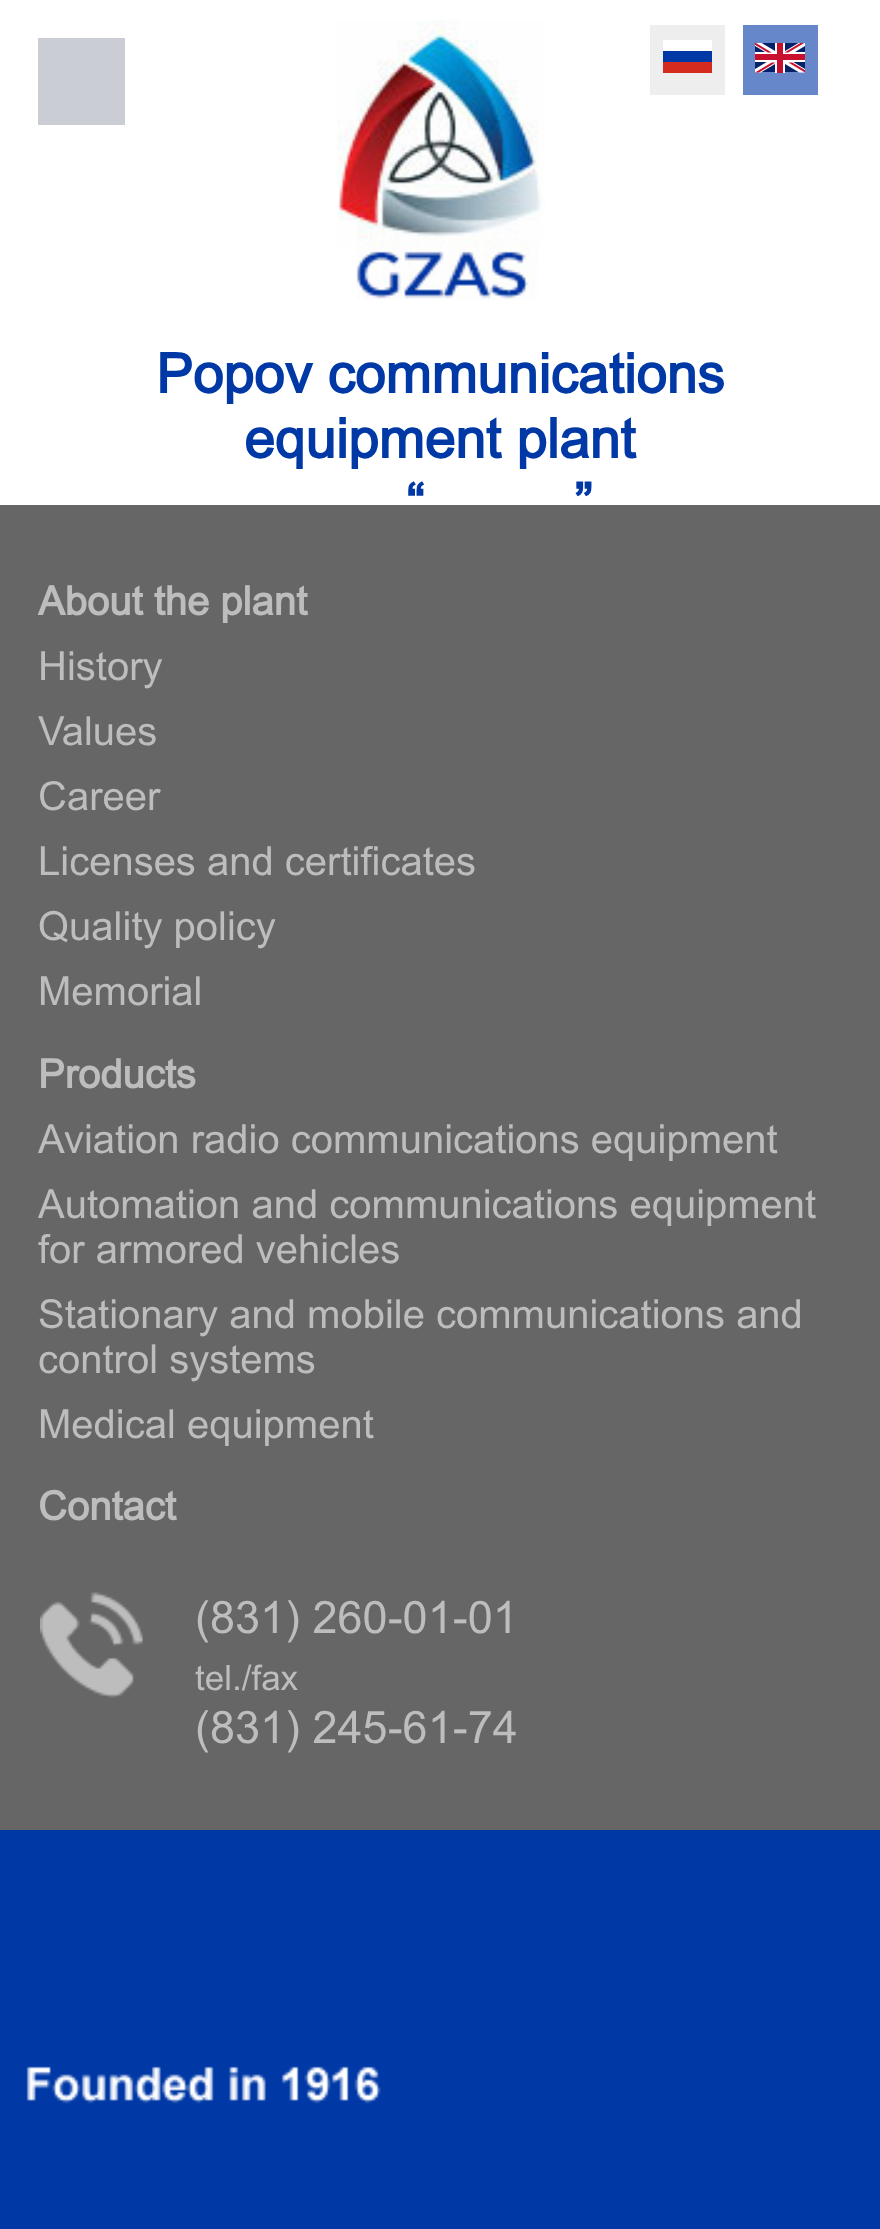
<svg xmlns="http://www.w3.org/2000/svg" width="880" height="2229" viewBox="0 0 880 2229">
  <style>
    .t1 { font: bold 55px Arial; fill: #0039a6; }
    .t2 { font: bold 40px Arial; fill: #bdbdbd; }
    .t3 { font: 40px Arial; fill: #bdbdbd; }
    .t4 { font: 45px Arial; fill: #bdbdbd; }
    .t5 { font: 35px Arial; fill: #bdbdbd; }
  </style>
  <rect width="100%" height="100%" fill="#fff"/>
  <rect x="38" y="38" width="87" height="87" fill="#cacdd4"/>
  <image x="337" y="20" width="208" height="280" href="images/1.png"/>
  <rect x="650" y="25" width="75" height="70" fill="#eee"/>
  <rect x="663" y="40" width="49" height="11" fill="#fff"/>
  <rect x="663" y="51" width="49" height="11" fill="#0039a6"/>
  <rect x="663" y="62" width="49" height="11" fill="#d52b1e"/>
  <rect x="743" y="25" width="75" height="70" fill="#6688ca"/>
  <image x="755" y="43" width="50" height="30" href="images/2.png"/>
  <text x="156" y="393" class="t1">Popov communications</text>
  <text x="244" y="458" class="t1">equipment plant</text>
  <text x="406" y="523" class="t1">“</text>
  <text x="574" y="523" class="t1">”</text>
  <rect x="0" y="505" width="880" height="1325" fill="#666"/>
  <text x="38" y="615" class="t2">About the plant</text>
  <text x="38" y="680" class="t3">History</text>
  <text x="38" y="745" class="t3">Values</text>
  <text x="38" y="810" class="t3">Career</text>
  <text x="38" y="875" class="t3">Licenses and certificates</text>
  <text x="38" y="940" class="t3">Quality policy</text>
  <text x="38" y="1005" class="t3">Memorial</text>
  <text x="38" y="1088" class="t2">Products</text>
  <text x="38" y="1153" class="t3">Aviation radio communications equipment</text>
  <text x="38" y="1218" class="t3">Automation and communications equipment</text>
  <text x="38" y="1263" class="t3">for armored vehicles</text>
  <text x="38" y="1328" class="t3">Stationary and mobile communications and</text>
  <text x="38" y="1373" class="t3">control systems</text>
  <text x="38" y="1438" class="t3">Medical equipment</text>
  <text x="38" y="1520" class="t2">Contact</text>
  <image x="40" y="1592" width="103" height="106" href="images/3.png"/>
  <text x="195" y="1633" class="t4">(831) 260-01-01</text>
  <text x="195" y="1690" class="t5">tel./fax</text>
  <text x="195" y="1743" class="t4">(831) 245-61-74</text>
  <rect x="0" y="1830" width="880" height="399" fill="#0039a6"/>
  <image x="26" y="2066" width="355" height="38" href="images/4.png"/>
</svg>
